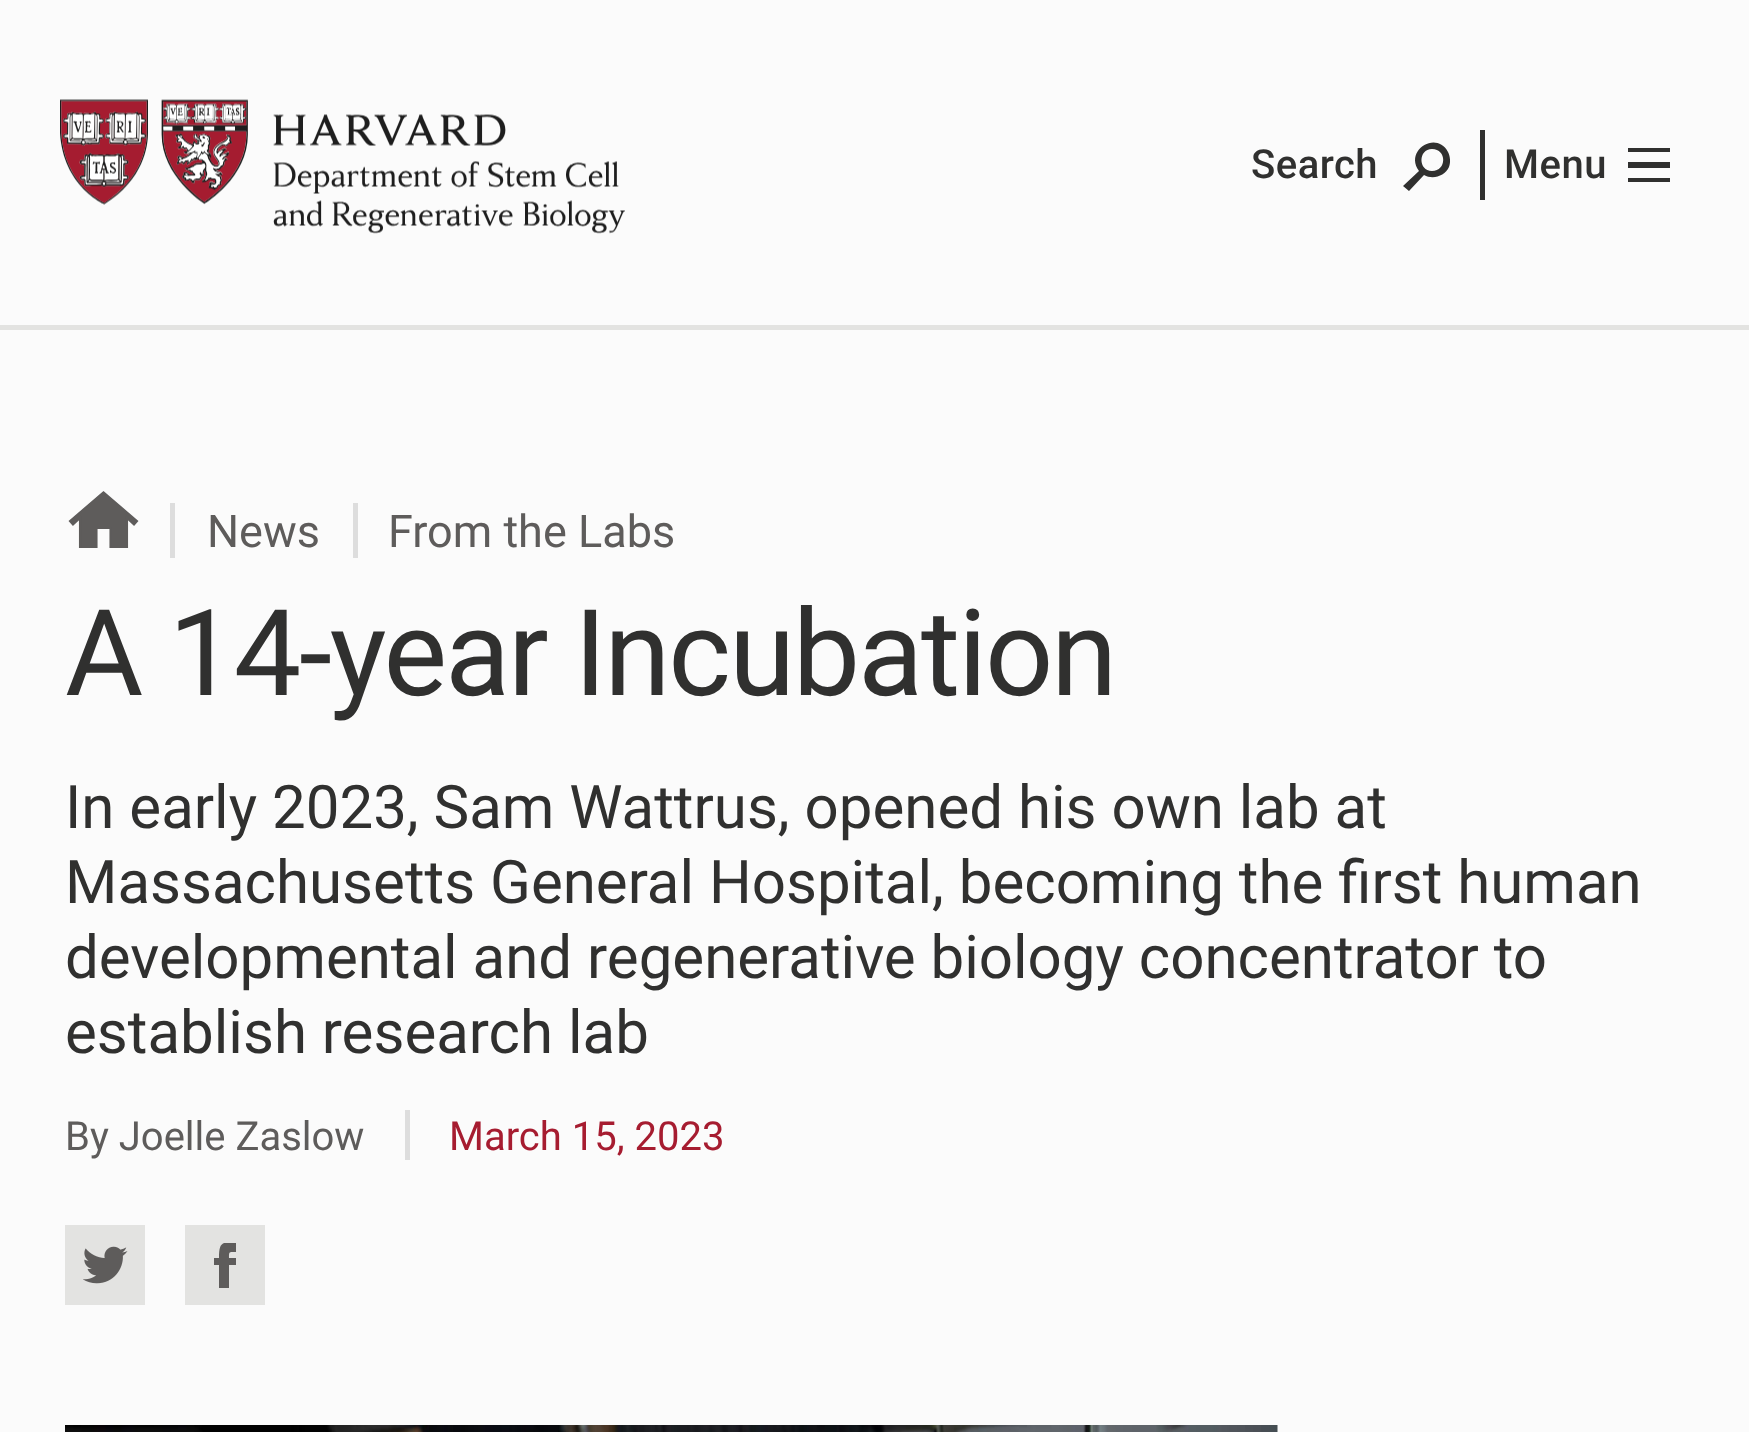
<svg xmlns="http://www.w3.org/2000/svg" width="1749" height="1432" viewBox="0 0 1749 1432">
  <style>
    .t1 { font: 500 40px Roboto; letter-spacing: 0.5px; fill: #30302f; }
    .t2 { font: 45px Roboto; fill: #5e5c5b; }
    .t3 { font: 120px Roboto; letter-spacing: -2.25px; fill: #30302f; }
    .t4 { font: 60px Roboto; fill: #30302f; }
    .t5 { font: 40px Roboto; fill: #5e5c5b; }
    .t6 { font: 40px Roboto; fill: #a61c30; }
  </style>
  <defs>
    <clipPath id="clip1"><rect x="65" y="490" width="75" height="58"/></clipPath>
    <clipPath id="clip2"><rect x="203" y="1243" width="45" height="45"/></clipPath>
  </defs>
  <rect width="100%" height="100%" fill="#fbfbfb"/>
  <rect x="0" y="325" width="1749" height="5" fill="#e3e3e1"/>
  <image x="60" y="99" width="565" height="135" href="images/1.png"/>
  <text x="1251" y="178" class="t1">Search</text>
  <path d="M1432 149C1418 149 1418 171 1432 171C1447 171 1447 149 1432 149ZM1424 175L1409 191L1403 186L1419 171C1404 151 1436 130 1448 152C1450 156 1451 162 1449 167C1445 176 1433 180 1424 175Z" fill="#30302f"/>
  <rect x="1480" y="130" width="5" height="70" fill="#30302f"/>
  <text x="1504" y="178" class="t1">Menu</text>
  <path d="M1628 162H1670V168H1628ZM1628 148H1670V152H1628ZM1628 178H1670V182H1628Z" fill="#30302f"/>
  <g clip-path="url(#clip1)">
    <path d="M127 549H111V528H96V549H80V518L73 524L70 521L103 492L137 521L134 524L127 518Z" fill="#5e5c5b"/>
    <path d="M127 549.5H110.5V528H96.5V549.5H80V518L73 524.5L70 521L103.5 492.5L137 521L134 524.5L127 518Z" fill="none" stroke="#5e5c5b" stroke-width="2.1"/>
  </g>
  <rect x="170" y="503" width="5" height="55" fill="#ddd"/>
  <text x="207" y="547" class="t2">News</text>
  <rect x="353" y="503" width="5" height="55" fill="#ddd"/>
  <text x="388" y="547" class="t2">From the Labs</text>
  <text x="65" y="695" class="t3">A 14-year Incubation</text>
  <text x="65" y="828" class="t4">In early 2023, Sam Wattrus, opened his own lab at</text>
  <text x="65" y="903" class="t4">Massachusetts General Hospital, becoming the first human</text>
  <text x="65" y="978" class="t4">developmental and regenerative biology concentrator to</text>
  <text x="65" y="1053" class="t4">establish research lab</text>
  <text x="65" y="1150" class="t5">By Joelle Zaslow</text>
  <rect x="405" y="1110" width="5" height="50" fill="#ddd"/>
  <text x="449" y="1150" class="t6">March 15, 2023</text>
  <rect x="65" y="1225" width="80" height="80" fill="#e3e3e1"/>
  <image x="83" y="1246" width="45" height="38" href="images/2.png"/>
  <rect x="185" y="1225" width="80" height="80" fill="#e3e3e1"/>
  <g clip-path="url(#clip2)">
    <path d="M219 1258H214V1265H219V1288H229V1265H236V1258H229C229 1251 229 1252 236 1252V1242C222 1242 219 1242 219 1258Z" fill="#5e5c5b"/>
  </g>
  <image x="65" y="1425" width="1213" height="7" href="images/3.png"/>
</svg>
